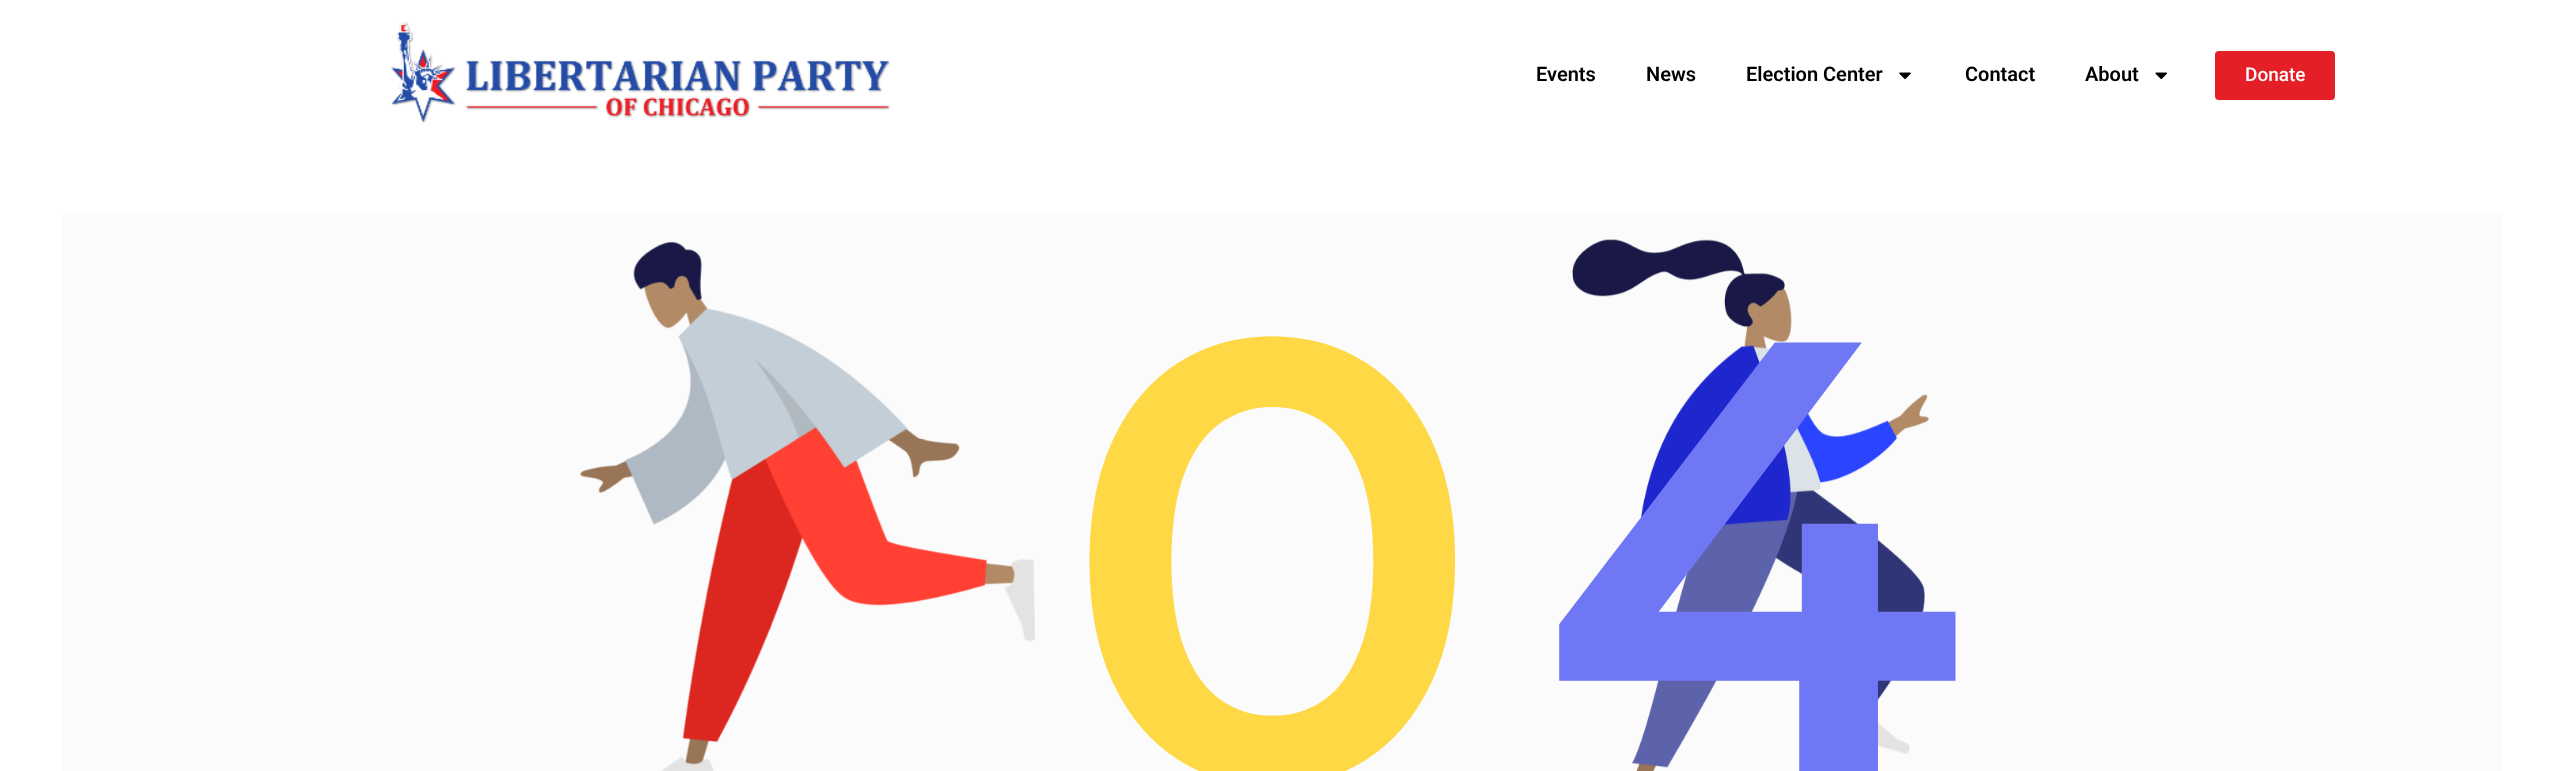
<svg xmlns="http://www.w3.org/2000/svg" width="2563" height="771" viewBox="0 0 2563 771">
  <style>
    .t1 { font: 600 20px Roboto; fill: #000; }
    .t2 { font: 500 19px Roboto; fill: #fff; }
    .t3 { font: 600 625px Montserrat; fill: #ffd845; }
    .t4 { font: 600 625px Montserrat; fill: #6f77f4; }
  </style>
  <rect width="100%" height="100%" fill="#fbfbfb"/>
  <rect x="0" y="0" width="2563" height="150" fill="#fff"/>
  <image x="391" y="21" width="499" height="103" href="images/1.png"/>
  <text x="1536" y="81" class="t1">Events</text>
  <text x="1646" y="81" class="t1">News</text>
  <text x="1746" y="81" class="t1">Election Center</text>
  <image x="1899" y="72" width="12" height="7" href="images/2.png"/>
  <text x="1965" y="81" class="t1">Contact</text>
  <text x="2085" y="81" class="t1">About</text>
  <image x="2155" y="72" width="12" height="7" href="images/3.png"/>
  <rect x="2215" y="51" width="120" height="49" rx="4" fill="#e41f28"/>
  <text x="2245" y="81" class="t2">Donate</text>
  <rect x="63" y="150" width="2438" height="63" fill="#fff"/>
  <rect x="2501" y="150" width="62" height="621" fill="#fff"/>
  <rect x="0" y="150" width="63" height="621" fill="#fff"/>
  <image x="580" y="241" width="455" height="530" href="images/4.png"/>
  <image x="1572" y="239" width="357" height="532" href="images/5.png"/>
  <text x="1062" y="780" class="t3">0</text>
  <text x="1538" y="780" class="t4">4</text>
</svg>
